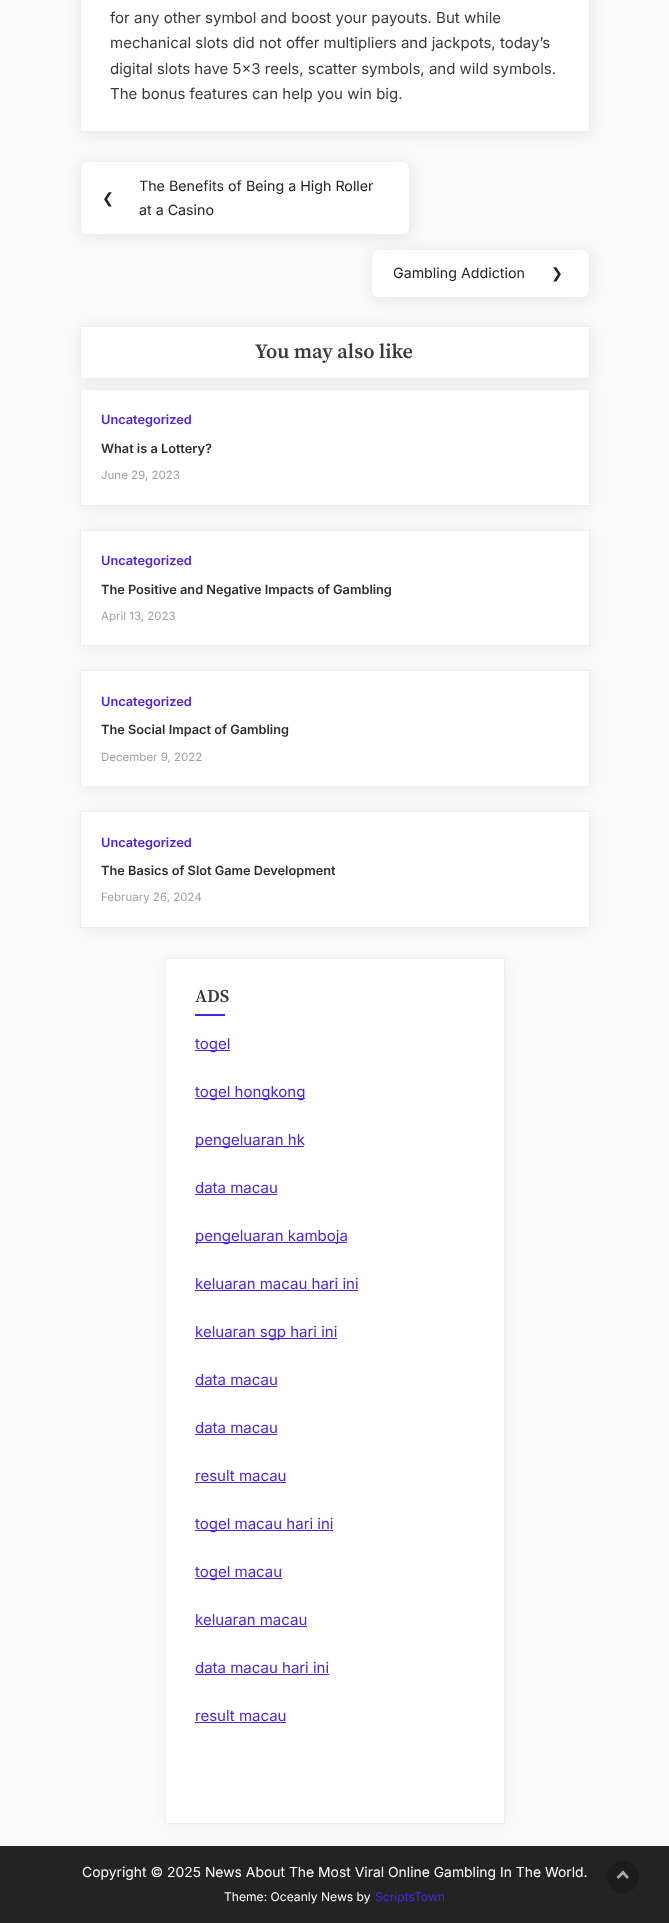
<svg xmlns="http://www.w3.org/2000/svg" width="669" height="1923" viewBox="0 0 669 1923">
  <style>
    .t1 { font: 15px Inter; fill: #3a3a3a; }
    .t2 { font: 14.25px DejaVu Sans; fill: #242323; }
    .t3 { font: 14.25px Inter; fill: #242323; }
    .t4 { font: 600 20.25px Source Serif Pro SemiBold; fill: #3a3a3a; }
    .t5 { font: 600 12.75px Inter; fill: #4b23e1; }
    .t6 { font: 600 12.75px Inter; fill: #2e2e2e; }
    .t7 { font: 11.5px Inter; fill: #a1a1a1; }
    .t8 { font: 600 18px Source Serif Pro SemiBold; fill: #3a3a3a; }
    .t9 { font: 15px Inter; fill: #4b23e1; }
    .t10 { font: 13.9px Inter; fill: #fff; }
    .t11 { font: 12.1px Inter; fill: #fff; }
    .t12 { font: 12.1px Inter; fill: #4b23e1; }
  </style>
  <rect width="100%" height="100%" fill="#fafafa"/>
  <rect x="81" y="-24" width="510" height="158" fill="#00000014" filter="blur(8px)"/>
  <rect x="80.5" y="-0.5" width="509" height="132" fill="#fff" stroke="#efefef"/>
  <text x="110" y="23" class="t1">for any other symbol and boost your payouts. But while</text>
  <text x="110" y="48" class="t1">mechanical slots did not offer multipliers and jackpots, today’s</text>
  <text x="110" y="74" class="t1">digital slots have 5×3 reels, scatter symbols, and wild symbols.</text>
  <text x="110" y="99" class="t1">The bonus features can help you win big.</text>
  <rect x="81" y="163" width="330" height="74" rx="7" fill="#00000014" filter="blur(8px)"/>
  <rect x="80.5" y="161.5" width="329" height="73" rx="6.5" fill="#fff" stroke="#efefef"/>
  <text x="102" y="203" class="t2">❮</text>
  <text x="139" y="191" class="t3">The Benefits of Being a High Roller</text>
  <text x="139" y="215" class="t3">at a Casino</text>
  <rect x="372" y="251" width="219" height="49" rx="7" fill="#00000014" filter="blur(8px)"/>
  <rect x="371.5" y="249.5" width="218" height="48" rx="6.5" fill="#fff" stroke="#efefef"/>
  <text x="393" y="278" class="t3">Gambling Addiction</text>
  <text x="551" y="278" class="t2">❯</text>
  <rect x="81" y="328" width="510" height="53" fill="#00000014" filter="blur(8px)"/>
  <rect x="80.5" y="326.5" width="509" height="52" fill="#fff" stroke="#efefef"/>
  <text x="255" y="358" class="t4">You may also like</text>
  <rect x="81" y="391" width="510" height="117" fill="#0000000f" filter="blur(8px)"/>
  <rect x="80.5" y="389.5" width="509" height="116" fill="#fff" stroke="#eee"/>
  <text x="101" y="424" class="t5">Uncategorized</text>
  <text x="101" y="453" class="t6">What is a Lottery?</text>
  <text x="101" y="479" class="t7">June 29, 2023</text>
  <rect x="81" y="532" width="510" height="116" fill="#0000000f" filter="blur(8px)"/>
  <rect x="80.5" y="530.5" width="509" height="115" fill="#fff" stroke="#eee"/>
  <text x="101" y="565" class="t5">Uncategorized</text>
  <text x="101" y="594" class="t6">The Positive and Negative Impacts of Gambling</text>
  <text x="101" y="620" class="t7">April 13, 2023</text>
  <rect x="81" y="672" width="510" height="117" fill="#0000000f" filter="blur(8px)"/>
  <rect x="80.5" y="670.5" width="509" height="116" fill="#fff" stroke="#eee"/>
  <text x="101" y="706" class="t5">Uncategorized</text>
  <text x="101" y="734" class="t6">The Social Impact of Gambling</text>
  <text x="101" y="761" class="t7">December 9, 2022</text>
  <rect x="81" y="813" width="510" height="117" fill="#0000000f" filter="blur(8px)"/>
  <rect x="80.5" y="811.5" width="509" height="116" fill="#fff" stroke="#eee"/>
  <text x="101" y="847" class="t5">Uncategorized</text>
  <text x="101" y="875" class="t6">The Basics of Slot Game Development</text>
  <text x="101" y="901" class="t7">February 26, 2024</text>
  <rect x="0" y="1846" width="669" height="77" fill="#242323"/>
  <rect x="166" y="960" width="340" height="866" fill="#0000000a" filter="blur(8px)"/>
  <rect x="165.5" y="958.5" width="339" height="865" fill="#fff" stroke="#efefef"/>
  <text x="195" y="1002" class="t8">ADS</text>
  <rect x="195" y="1014" width="30" height="2" fill="#4b23e1"/>
  <rect x="195" y="1050" width="35" height="1" fill="#4b23e1"/>
  <text x="195" y="1049" class="t9">togel</text>
  <rect x="195" y="1098" width="110" height="1" fill="#4b23e1"/>
  <text x="195" y="1097" class="t9">togel hongkong</text>
  <rect x="195" y="1146" width="109" height="1" fill="#4b23e1"/>
  <text x="195" y="1145" class="t9">pengeluaran hk</text>
  <text x="195" y="1193" class="t9">data macau</text>
  <rect x="195" y="1194" width="82" height="1" fill="#4b23e1"/>
  <rect x="195" y="1242" width="152" height="1" fill="#4b23e1"/>
  <text x="195" y="1241" class="t9">pengeluaran kamboja</text>
  <text x="195" y="1289" class="t9">keluaran macau hari ini</text>
  <rect x="195" y="1290" width="163" height="1" fill="#4b23e1"/>
  <rect x="195" y="1338" width="142" height="1" fill="#4b23e1"/>
  <text x="195" y="1337" class="t9">keluaran sgp hari ini</text>
  <text x="195" y="1385" class="t9">data macau</text>
  <rect x="195" y="1386" width="82" height="1" fill="#4b23e1"/>
  <text x="195" y="1433" class="t9">data macau</text>
  <rect x="195" y="1434" width="82" height="1" fill="#4b23e1"/>
  <text x="195" y="1481" class="t9">result macau</text>
  <rect x="195" y="1482" width="91" height="1" fill="#4b23e1"/>
  <rect x="195" y="1530" width="138" height="1" fill="#4b23e1"/>
  <text x="195" y="1529" class="t9">togel macau hari ini</text>
  <rect x="195" y="1578" width="87" height="1" fill="#4b23e1"/>
  <text x="195" y="1577" class="t9">togel macau</text>
  <text x="195" y="1625" class="t9">keluaran macau</text>
  <rect x="195" y="1626" width="112" height="1" fill="#4b23e1"/>
  <text x="195" y="1673" class="t9">data macau hari ini</text>
  <rect x="195" y="1674" width="134" height="1" fill="#4b23e1"/>
  <text x="195" y="1721" class="t9">result macau</text>
  <rect x="195" y="1722" width="91" height="1" fill="#4b23e1"/>
  <text x="82" y="1877" class="t10">Copyright © 2025 News About The Most Viral Online Gambling In The World.</text>
  <text x="224" y="1901" class="t11">Theme: Oceanly News by</text>
  <text x="375" y="1901" class="t12">ScriptsTown</text>
  <circle cx="623" cy="1877" r="16" fill="#1c1c1c"/>
  <path d="M618.5 1879L616.5 1877L623 1870.5L625 1872.5Z" fill="#a7a7a7"/>
  <path d="M627 1879L621 1872.5L623 1870.5L629 1877Z" fill="#a7a7a7"/>
</svg>
